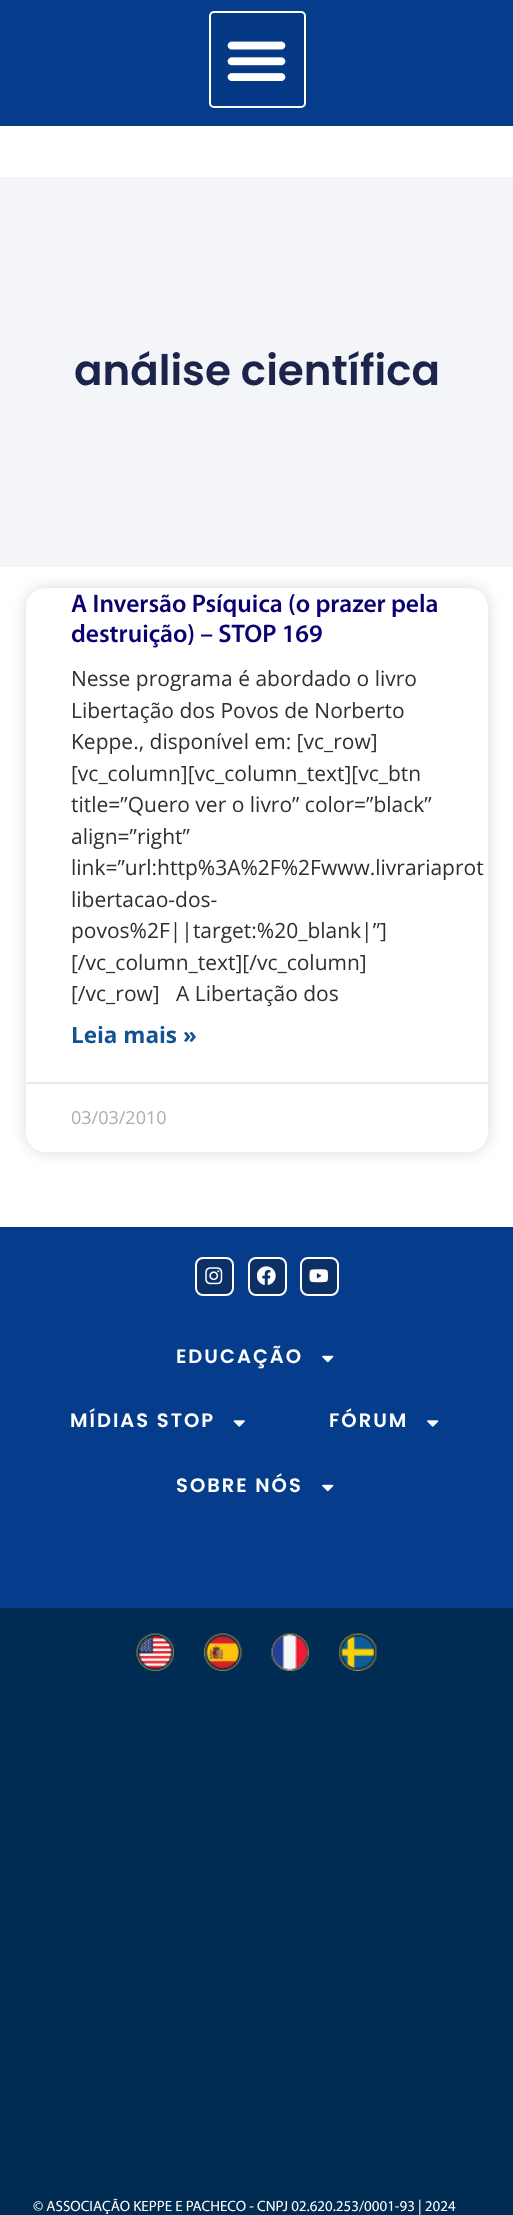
<svg xmlns="http://www.w3.org/2000/svg" width="513" height="2215" viewBox="0 0 513 2215">
  <style>
    .t1 { font: 600 42px Poppins; fill: #1c244b; }
    .t2 { font: 600 25.5px Myriad; fill: #0b0272; }
    .t3 { font: 21px Open Sans; fill: #2f2f30; }
    .t4 { font: bold 22.5px Open Sans; fill: #135292; }
    .t5 { font: 18px Open Sans; fill: #adadad; }
    .t6 { font: 600 19.5px Poppins; letter-spacing: 2px; fill: #fff; }
    .t7 { font: 15px Myriad; fill: #fff; }
  </style>
  <rect width="100%" height="100%" fill="#fff"/>
  <rect x="0" y="0" width="513" height="126" fill="#063c8c"/>
  <rect x="210" y="12" width="95" height="95" rx="4" fill="#063985" stroke="#fff" stroke-width="2"/>
  <image x="227" y="41" width="59" height="40" href="images/1.png"/>
  <rect x="0" y="177" width="513" height="390" fill="#f3f5f8"/>
  <text x="74" y="385" class="t1">análise científica</text>
  <rect x="26" y="588" width="462" height="564" rx="20" fill="#00000026" filter="blur(7.5px)"/>
  <rect x="26" y="588" width="462" height="564" rx="20" fill="#fff"/>
  <text x="71" y="612" class="t2">A Inversão Psíquica (o prazer pela</text>
  <text x="71" y="642" class="t2">destruição) – STOP 169</text>
  <text x="71" y="686" class="t3">Nesse programa é abordado o livro</text>
  <text x="71" y="718" class="t3">Libertação dos Povos de Norberto</text>
  <text x="71" y="749" class="t3">Keppe., disponível em: [vc_row]</text>
  <text x="71" y="781" class="t3">[vc_column][vc_column_text][vc_btn</text>
  <text x="71" y="812" class="t3">title=”Quero ver o livro” color=”black”</text>
  <text x="71" y="844" class="t3">align=”right”</text>
  <text x="71" y="875" class="t3">link=”url:http%3A%2F%2Fwww.livrariaprot</text>
  <text x="71" y="907" class="t3">libertacao-dos-</text>
  <text x="71" y="938" class="t3">povos%2F||target:%20_blank|”]</text>
  <text x="71" y="970" class="t3">[/vc_column_text][/vc_column]</text>
  <text x="71" y="1001" class="t3" xml:space="preserve">[/vc_row]   A Libertação dos</text>
  <text x="71" y="1043" class="t4">Leia mais »</text>
  <rect x="26" y="1082" width="462" height="2" fill="#eaeaea"/>
  <text x="71" y="1124" class="t5">03/03/2010</text>
  <rect x="0" y="1227" width="513" height="381" fill="#063c8c"/>
  <rect x="196" y="1258" width="37" height="37" rx="7" fill="#0c2f66" stroke="#fff" stroke-width="2"/>
  <image x="205" y="1267" width="18" height="18" href="images/2.png"/>
  <rect x="249" y="1258" width="37" height="37" rx="7" fill="#0c2f66" stroke="#fff" stroke-width="2"/>
  <image x="257" y="1266" width="19" height="19" href="images/3.png"/>
  <rect x="301" y="1258" width="37" height="37" rx="7" fill="#0c2f66" stroke="#fff" stroke-width="2"/>
  <image x="309" y="1269" width="19" height="14" href="images/4.png"/>
  <text x="176" y="1363" class="t6">EDUCAÇÃO</text>
  <image x="322" y="1355" width="12" height="8" href="images/5.png"/>
  <text x="70" y="1427" class="t6">MÍDIAS STOP</text>
  <image x="233" y="1420" width="12" height="7" href="images/6.png"/>
  <text x="329" y="1427" class="t6">FÓRUM</text>
  <image x="427" y="1420" width="12" height="7" href="images/7.png"/>
  <text x="176" y="1492" class="t6">SOBRE NÓS</text>
  <image x="322" y="1484" width="12" height="8" href="images/5.png"/>
  <rect x="0" y="1608" width="513" height="607" fill="#002b52"/>
  <image x="136" y="1633" width="38" height="38" href="images/8.png"/>
  <image x="204" y="1633" width="38" height="38" href="images/9.png"/>
  <image x="271" y="1633" width="38" height="38" href="images/10.png"/>
  <image x="339" y="1633" width="38" height="38" href="images/11.png"/>
  <text x="33" y="2211" class="t7">© ASSOCIAÇÃO KEPPE E PACHECO - CNPJ 02.620.253/0001-93 | 2024</text>
</svg>
